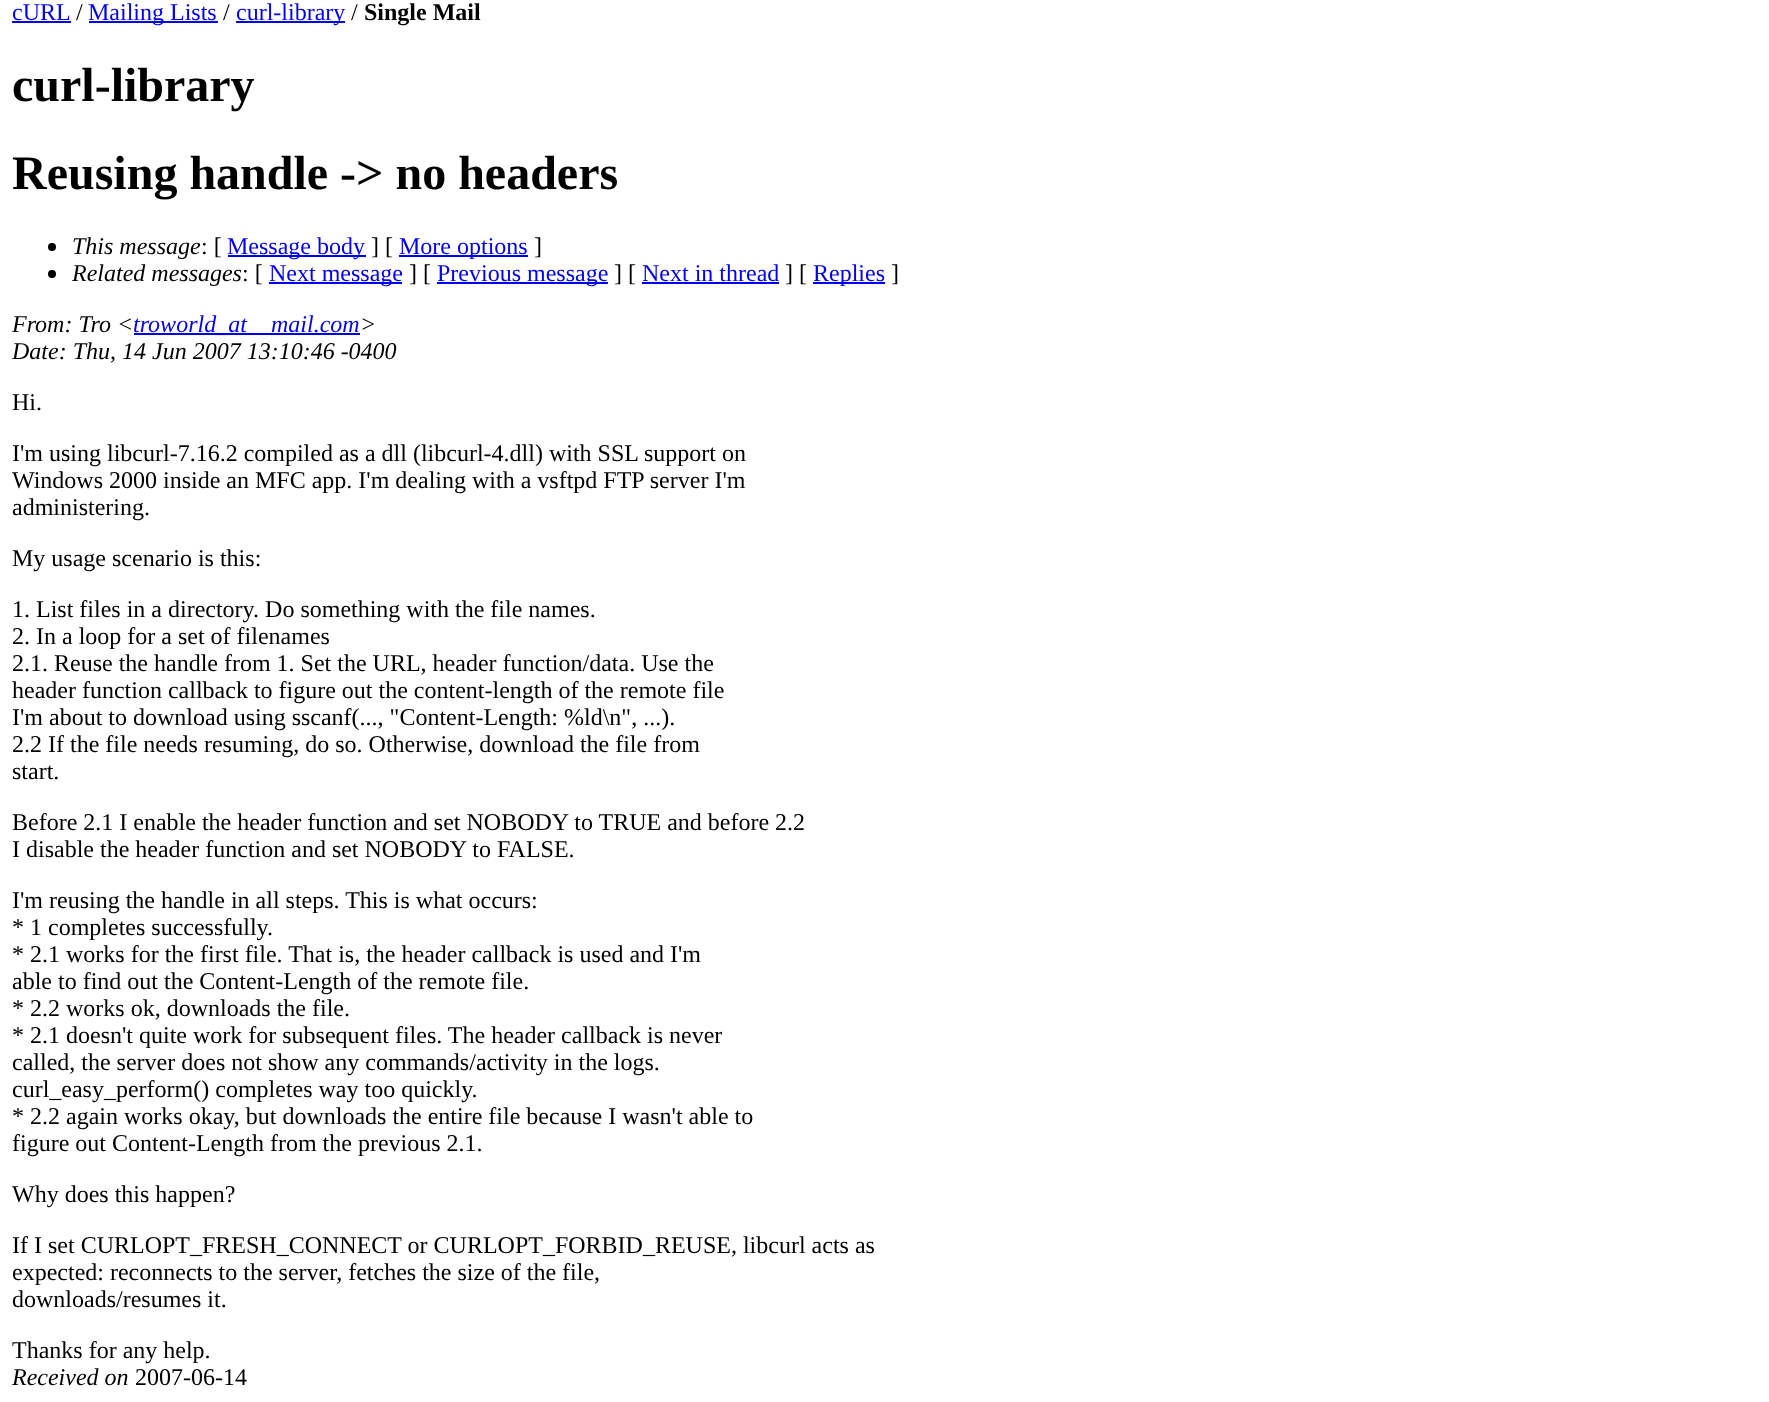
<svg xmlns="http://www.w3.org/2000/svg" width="1769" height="1402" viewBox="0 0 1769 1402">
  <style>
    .t1 { font: 24px Liberation Serif; fill: #00e; }
    .t2 { font: 24px Liberation Serif; fill: #000; }
    .t3 { font: bold 24px Liberation Serif; fill: #000; }
    .t4 { font: bold 48px Liberation Serif; fill: #000; }
    .t5 { font: italic 24px Liberation Serif; fill: #000; }
    .t6 { font: italic 24px Liberation Serif; fill: #00e; }
  </style>
  <rect width="100%" height="100%" fill="#fff"/>
  <text x="12" y="20" class="t1">cURL</text>
  <rect x="12" y="21" width="59" height="2" fill="#00e"/>
  <text x="76" y="20" class="t2">/</text>
  <rect x="89" y="21" width="129" height="2" fill="#00e"/>
  <text x="88" y="20" class="t1">Mailing Lists</text>
  <text x="223" y="20" class="t2">/</text>
  <rect x="236" y="21" width="109" height="2" fill="#00e"/>
  <text x="236" y="20" class="t1">curl-library</text>
  <text x="351" y="20" class="t2">/</text>
  <text x="364" y="20" class="t3">Single Mail</text>
  <text x="12" y="101" class="t4">curl-library</text>
  <text x="12" y="189" class="t4">Reusing handle -&gt; no headers</text>
  <circle cx="52" cy="247" r="4" fill="#000"/>
  <text x="72" y="254" class="t5">This message</text>
  <text x="201" y="254" class="t2">: [</text>
  <rect x="228" y="255" width="138" height="2" fill="#00e"/>
  <text x="227" y="254" class="t1">Message body</text>
  <text x="371" y="254" class="t2">] [</text>
  <rect x="399" y="255" width="129" height="2" fill="#00e"/>
  <text x="399" y="254" class="t1">More options</text>
  <text x="534" y="254" class="t2">]</text>
  <circle cx="52" cy="274" r="4" fill="#000"/>
  <text x="72" y="281" class="t5">Related messages</text>
  <text x="242" y="281" class="t2">: [</text>
  <rect x="269" y="282" width="133" height="2" fill="#00e"/>
  <text x="269" y="281" class="t1">Next message</text>
  <text x="409" y="281" class="t2">] [</text>
  <rect x="437" y="282" width="171" height="2" fill="#00e"/>
  <text x="437" y="281" class="t1">Previous message</text>
  <text x="614" y="281" class="t2">] [</text>
  <text x="642" y="281" class="t1">Next in thread</text>
  <rect x="642" y="282" width="137" height="2" fill="#00e"/>
  <text x="785" y="281" class="t2">] [</text>
  <rect x="813" y="282" width="72" height="2" fill="#00e"/>
  <text x="813" y="281" class="t1">Replies</text>
  <text x="891" y="281" class="t2">]</text>
  <text x="12" y="332" class="t5">From: Tro &lt;</text>
  <rect x="134" y="333" width="226" height="2" fill="#00e"/>
  <text x="133" y="332" class="t6">troworld_at</text>
  <text x="271" y="332" class="t6">mail.com</text>
  <text x="360" y="332" class="t5">&gt;</text>
  <text x="12" y="359" class="t5">Date: Thu, 14 Jun 2007 13:10:46 -0400</text>
  <text x="12" y="410" class="t2">Hi.</text>
  <text x="12" y="461" class="t2">I'm using libcurl-7.16.2 compiled as a dll (libcurl-4.dll) with SSL support on</text>
  <text x="12" y="488" class="t2">Windows 2000 inside an MFC app. I'm dealing with a vsftpd FTP server I'm</text>
  <text x="12" y="515" class="t2">administering.</text>
  <text x="12" y="566" class="t2">My usage scenario is this:</text>
  <text x="12" y="617" class="t2">1. List files in a directory. Do something with the file names.</text>
  <text x="12" y="644" class="t2">2. In a loop for a set of filenames</text>
  <text x="12" y="671" class="t2">2.1. Reuse the handle from 1. Set the URL, header function/data. Use the</text>
  <text x="12" y="698" class="t2">header function callback to figure out the content-length of the remote file</text>
  <text x="12" y="725" class="t2">I'm about to download using sscanf(..., "Content-Length: %ld\n", ...).</text>
  <text x="12" y="752" class="t2">2.2 If the file needs resuming, do so. Otherwise, download the file from</text>
  <text x="12" y="779" class="t2">start.</text>
  <text x="12" y="830" class="t2">Before 2.1 I enable the header function and set NOBODY to TRUE and before 2.2</text>
  <text x="12" y="857" class="t2">I disable the header function and set NOBODY to FALSE.</text>
  <text x="12" y="908" class="t2">I'm reusing the handle in all steps. This is what occurs:</text>
  <text x="12" y="935" class="t2">* 1 completes successfully.</text>
  <text x="12" y="962" class="t2">* 2.1 works for the first file. That is, the header callback is used and I'm</text>
  <text x="12" y="989" class="t2">able to find out the Content-Length of the remote file.</text>
  <text x="12" y="1016" class="t2">* 2.2 works ok, downloads the file.</text>
  <text x="12" y="1043" class="t2">* 2.1 doesn't quite work for subsequent files. The header callback is never</text>
  <text x="12" y="1070" class="t2">called, the server does not show any commands/activity in the logs.</text>
  <text x="12" y="1097" class="t2">curl_easy_perform() completes way too quickly.</text>
  <text x="12" y="1124" class="t2">* 2.2 again works okay, but downloads the entire file because I wasn't able to</text>
  <text x="12" y="1151" class="t2">figure out Content-Length from the previous 2.1.</text>
  <text x="12" y="1202" class="t2">Why does this happen?</text>
  <text x="12" y="1253" class="t2">If I set CURLOPT_FRESH_CONNECT or CURLOPT_FORBID_REUSE, libcurl acts as</text>
  <text x="12" y="1280" class="t2">expected: reconnects to the server, fetches the size of the file,</text>
  <text x="12" y="1307" class="t2">downloads/resumes it.</text>
  <text x="12" y="1358" class="t2">Thanks for any help.</text>
  <text x="12" y="1385" class="t5">Received on</text>
  <text x="135" y="1385" class="t2">2007-06-14</text>
</svg>
